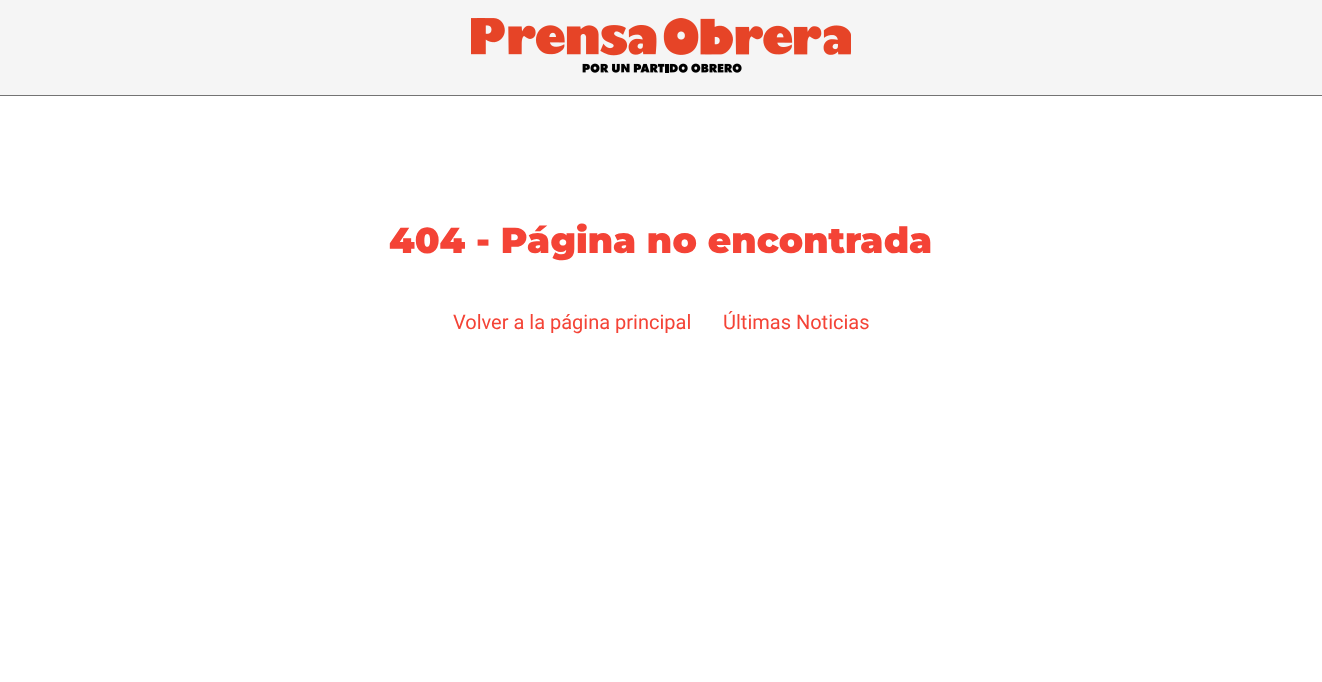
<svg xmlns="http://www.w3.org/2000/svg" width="1322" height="682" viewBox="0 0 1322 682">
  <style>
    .t1 { font: 900 36px Montserrat; fill: #f44336; }
    .t2 { font: 20px Roboto; fill: #f44336; }
  </style>
  <rect width="100%" height="100%" fill="#fff"/>
  <rect x="0" y="0" width="1322" height="95" fill="#f5f5f5"/>
  <rect x="0" y="95" width="1322" height="1" fill="#737373"/>
  <image x="471" y="18" width="380" height="55" href="images/1.png"/>
  <text x="389" y="253" class="t1">404 - Página no encontrada</text>
  <text x="453" y="329" class="t2">Volver a la página principal</text>
  <text x="723" y="329" class="t2">Últimas Noticias</text>
</svg>
